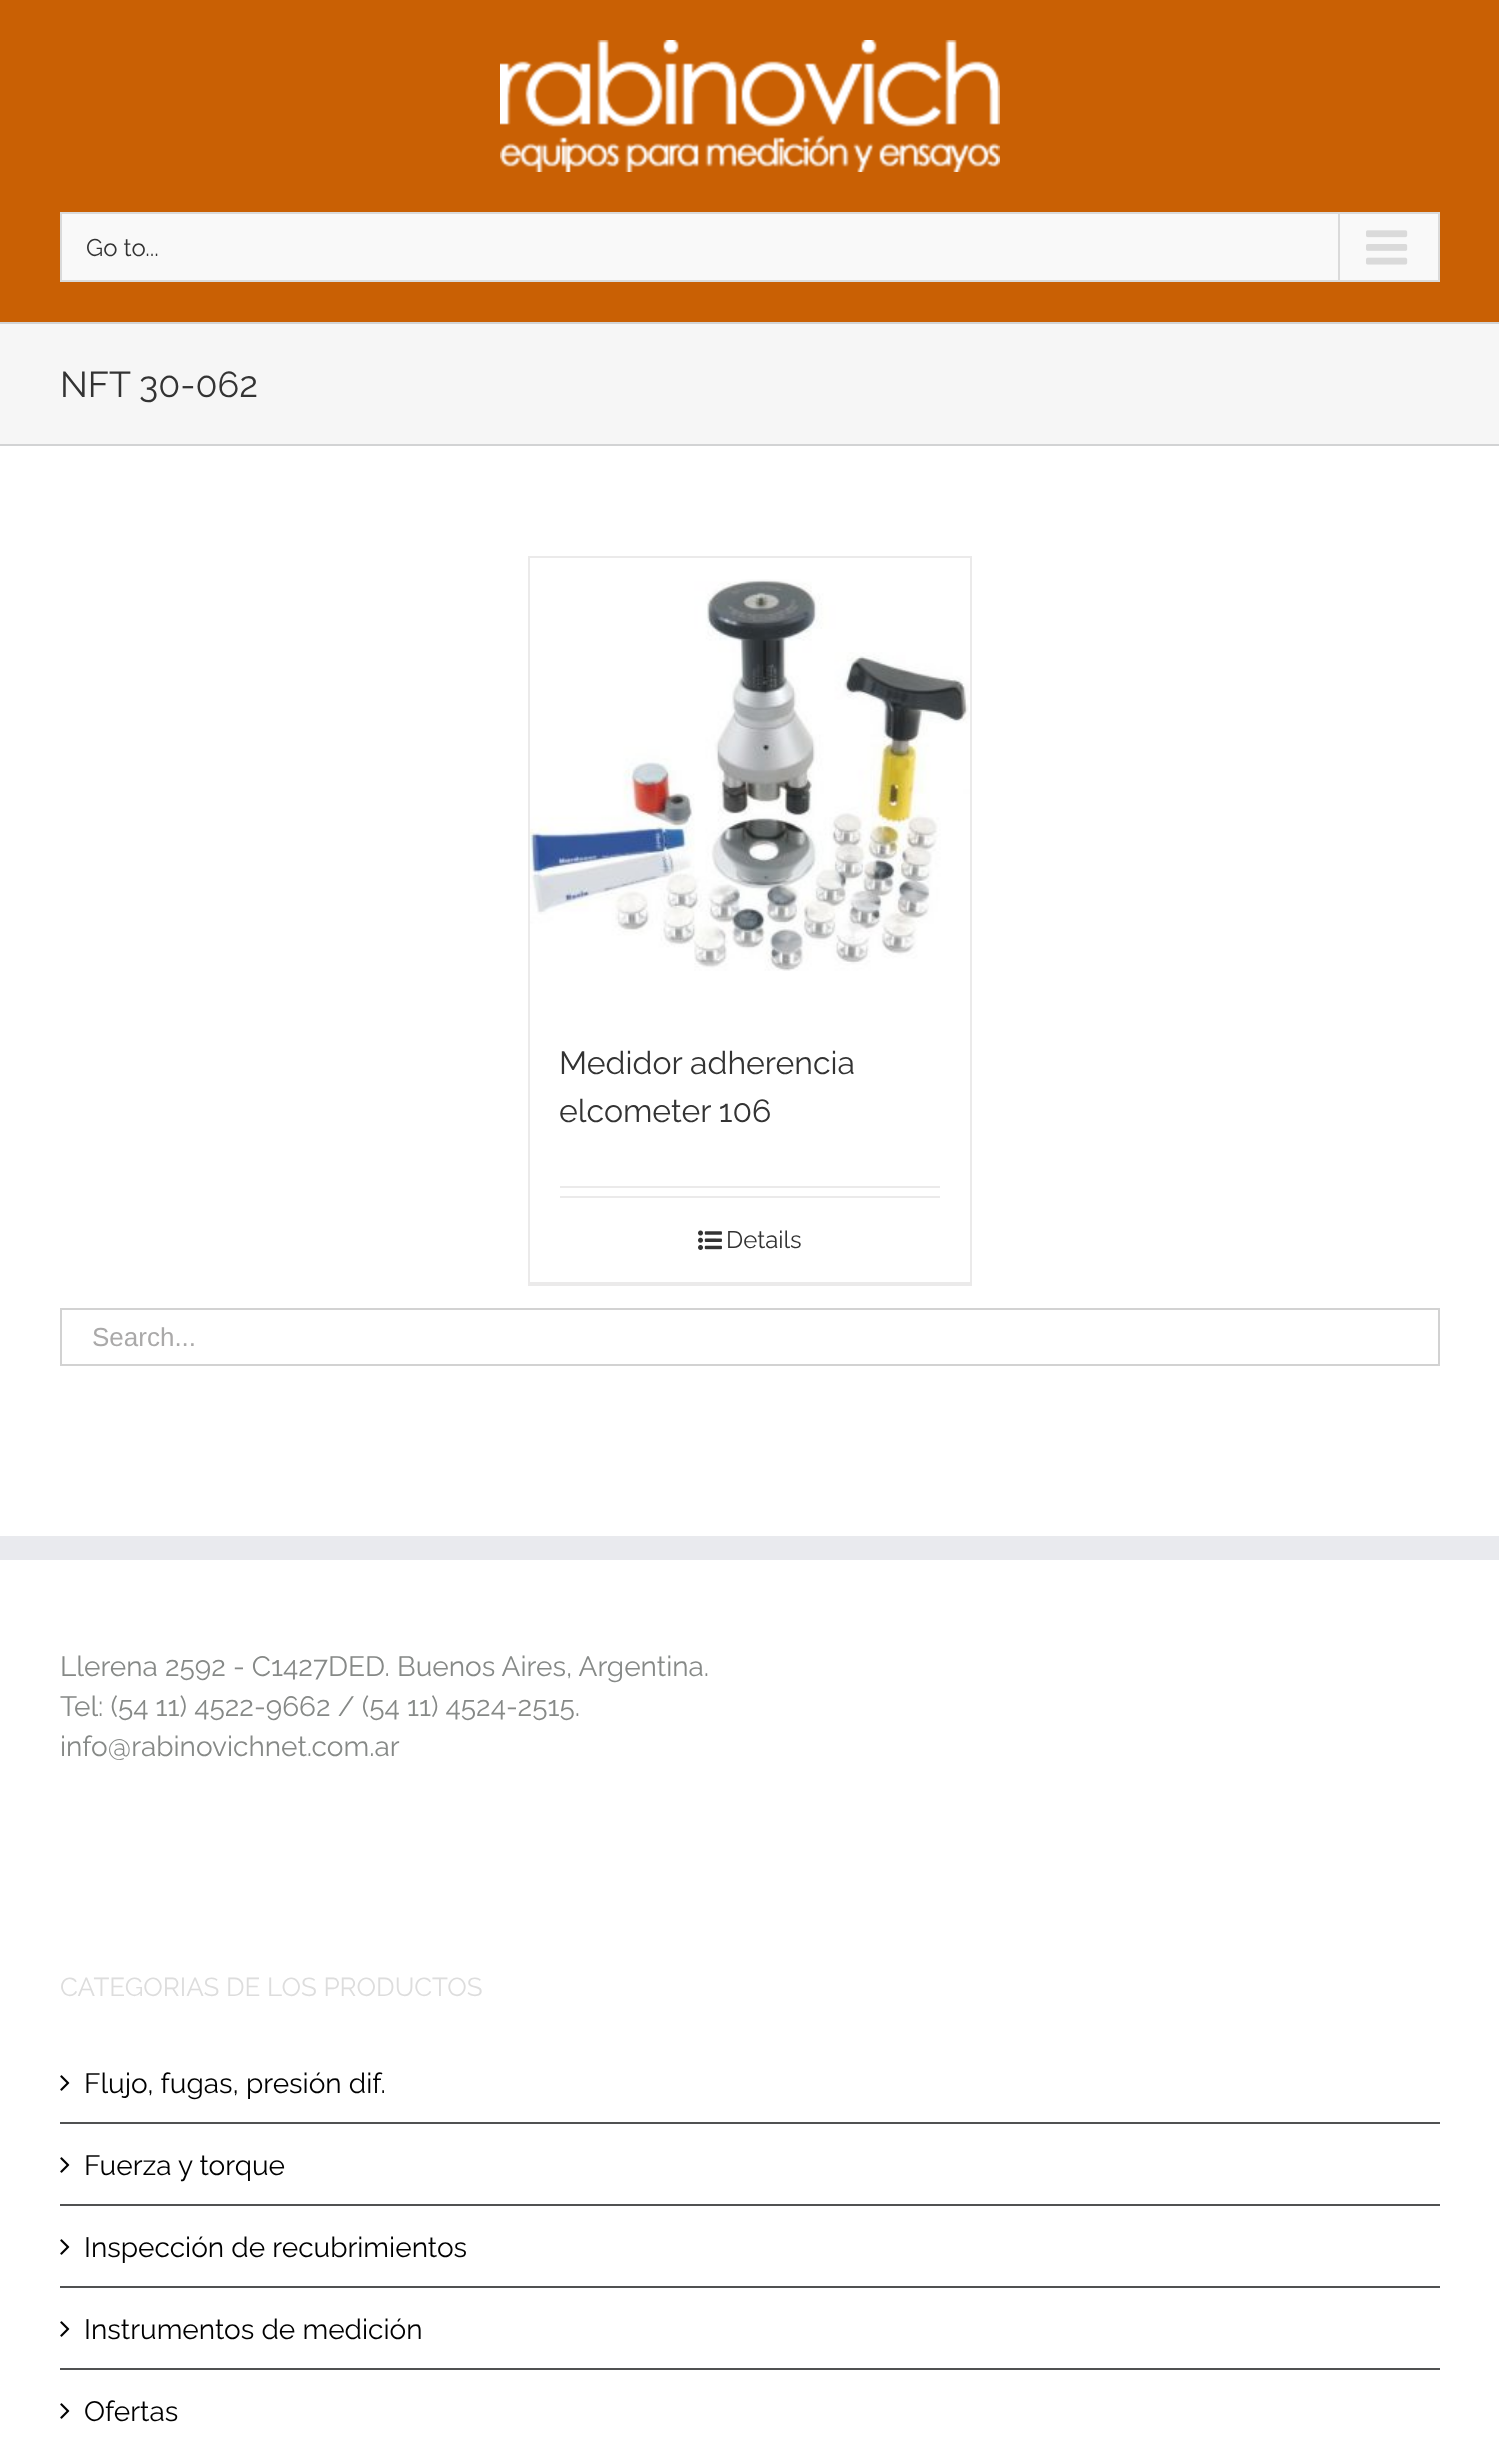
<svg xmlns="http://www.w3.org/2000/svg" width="1499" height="2442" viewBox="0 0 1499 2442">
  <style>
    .t1 { font: 100 24px Raleway; fill: #333; }
    .t2 { font: 100 36px Raleway; fill: #333; }
    .t3 { font: 100 32px Raleway; fill: #333; }
    .t4 { font: 26px Liberation Sans; fill: #aaa9a9; }
    .t5 { font: 100 28px Raleway; fill: #868987; }
    .t6 { font: 100 26px Raleway; fill: #ddd; }
    .t7 { font: 100 28px Raleway; fill: #000; }
  </style>
  <rect width="100%" height="100%" fill="#fff"/>
  <rect x="0" y="0" width="1499" height="322" fill="#c96004"/>
  <image x="500" y="40" width="500" height="132" href="images/1.png"/>
  <rect x="61" y="213" width="1378" height="68" fill="#f9f9f9" stroke="#dadada" stroke-width="2"/>
  <text x="86" y="256" class="t1">Go to...</text>
  <rect x="1338" y="214" width="2" height="66" fill="#dadada"/>
  <image x="1366" y="230" width="42" height="35" href="images/2.png"/>
  <rect x="0" y="324" width="1499" height="120" fill="#f6f6f6"/>
  <rect x="0" y="322" width="1499" height="2" fill="#d2d3d4"/>
  <rect x="0" y="444" width="1499" height="2" fill="#d2d3d4"/>
  <text x="60" y="397" class="t2">NFT 30-062</text>
  <rect x="528" y="556" width="444" height="2" fill="#ebeaea"/>
  <rect x="970" y="556" width="2" height="730" fill="#ebeaea"/>
  <rect x="528" y="1282" width="444" height="4" fill="#ebeaea"/>
  <rect x="528" y="556" width="2" height="730" fill="#ebeaea"/>
  <image x="530" y="579" width="440" height="392" href="images/3.png"/>
  <rect x="560" y="1186" width="380" height="2" fill="#ebeaea"/>
  <text x="559" y="1074" class="t3">Medidor adherencia</text>
  <text x="559" y="1122" class="t3">elcometer 106</text>
  <rect x="560" y="1196" width="380" height="2" fill="#ebeaea"/>
  <image x="698" y="1230" width="24" height="20" href="images/4.png"/>
  <text x="726" y="1248" class="t1">Details</text>
  <rect x="61" y="1309" width="1378" height="56" fill="none" stroke="#d2d2d2" stroke-width="2"/>
  <text x="92" y="1346" class="t4">Search...</text>
  <rect x="0" y="1536" width="1499" height="24" fill="#e9eaee"/>
  <text x="60" y="1676" class="t5">Llerena 2592 - C1427DED. Buenos Aires, Argentina.</text>
  <text x="60" y="1716" class="t5">Tel: (54 11) 4522-9662 / (54 11) 4524-2515.</text>
  <text x="60" y="1756" class="t5">info@rabinovichnet.com.ar</text>
  <text x="60" y="1996" class="t6">CATEGORIAS DE LOS PRODUCTOS</text>
  <rect x="60" y="2122" width="1380" height="2" fill="#505152"/>
  <image x="60" y="2075" width="10" height="16" href="images/5.png"/>
  <text x="84" y="2093" class="t7">Flujo, fugas, presión dif.</text>
  <rect x="60" y="2204" width="1380" height="2" fill="#505152"/>
  <image x="60" y="2157" width="10" height="16" href="images/5.png"/>
  <text x="84" y="2175" class="t7">Fuerza y torque</text>
  <rect x="60" y="2286" width="1380" height="2" fill="#505152"/>
  <image x="60" y="2239" width="10" height="16" href="images/5.png"/>
  <text x="84" y="2257" class="t7">Inspección de recubrimientos</text>
  <rect x="60" y="2368" width="1380" height="2" fill="#505152"/>
  <image x="60" y="2321" width="10" height="16" href="images/5.png"/>
  <text x="84" y="2339" class="t7">Instrumentos de medición</text>
  <image x="60" y="2403" width="10" height="16" href="images/5.png"/>
  <text x="84" y="2421" class="t7">Ofertas</text>
</svg>
